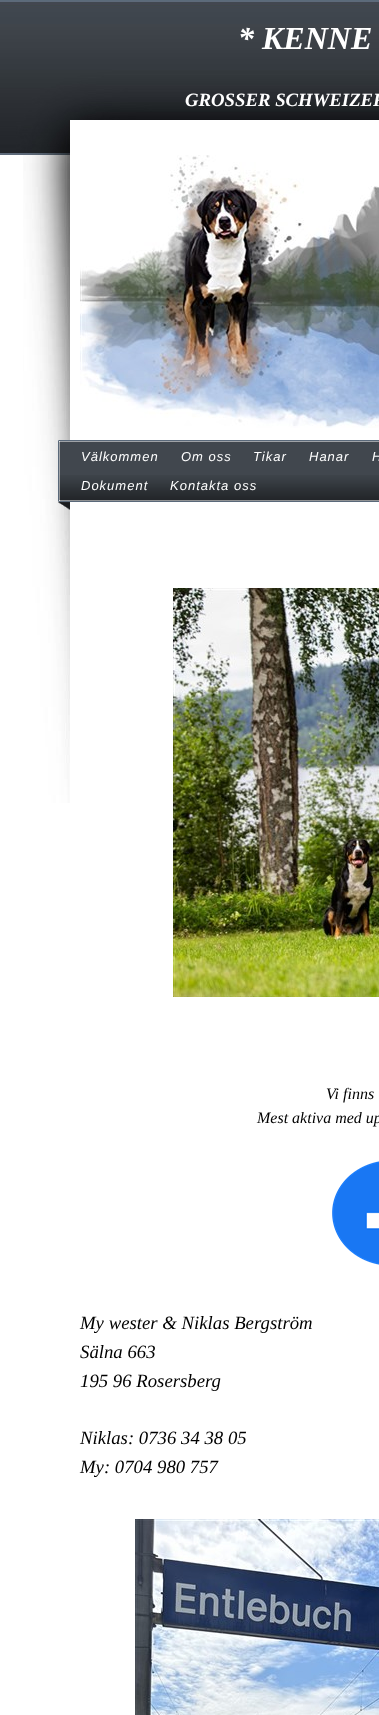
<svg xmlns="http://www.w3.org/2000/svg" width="379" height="1715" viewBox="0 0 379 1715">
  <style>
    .t1 { font: italic bold 32px Liberation Serif; fill: #fff; }
    .t2 { font: italic bold 18.75px Liberation Serif; fill: #fff; }
    .t3 { font: italic 13px Liberation Sans; letter-spacing: 1px; fill: #fff; }
    .t4 { font: italic 16px Liberation Serif; fill: #000; }
    .t5 { font: italic 18.75px Liberation Serif; fill: #000; }
  </style>
  <rect width="100%" height="100%" fill="#fff"/>
  <image x="23" y="155" width="47" height="648" href="images/1.png"/>
  <image x="0" y="0" width="379" height="155" href="images/2.png"/>
  <text x="238" y="49" class="t1">* KENNE</text>
  <text x="185" y="106" class="t2">GROSSER SCHWEIZER</text>
  <image x="80" y="155" width="299" height="273" href="images/3.png"/>
  <image x="58" y="440" width="321" height="2" href="images/4.png"/>
  <image x="58" y="442" width="321" height="58" href="images/5.png"/>
  <image x="59" y="475" width="320" height="25" href="images/6.png"/>
  <text x="81" y="461" class="t3">Välkommen</text>
  <text x="181" y="461" class="t3">Om oss</text>
  <text x="253" y="461" class="t3">Tikar</text>
  <text x="309" y="461" class="t3">Hanar</text>
  <text x="372" y="461" class="t3">H</text>
  <text x="81" y="490" class="t3">Dokument</text>
  <text x="170" y="490" class="t3">Kontakta oss</text>
  <image x="58" y="500" width="321" height="10" href="images/7.png"/>
  <image x="173" y="588" width="206" height="409" href="images/8.png"/>
  <text x="326" y="1099" class="t4">Vi finns</text>
  <text x="257" y="1123" class="t4">Mest aktiva med up</text>
  <image x="332" y="1161" width="47" height="104" href="images/9.png"/>
  <text x="80" y="1329" class="t5">My wester &amp; Niklas Bergström</text>
  <text x="80" y="1358" class="t5">Sälna 663</text>
  <text x="80" y="1387" class="t5">195 96 Rosersberg</text>
  <text x="80" y="1444" class="t5">Niklas: 0736 34 38 05</text>
  <text x="80" y="1473" class="t5">My: 0704 980 757</text>
  <image x="135" y="1519" width="244" height="196" href="images/10.png"/>
</svg>
